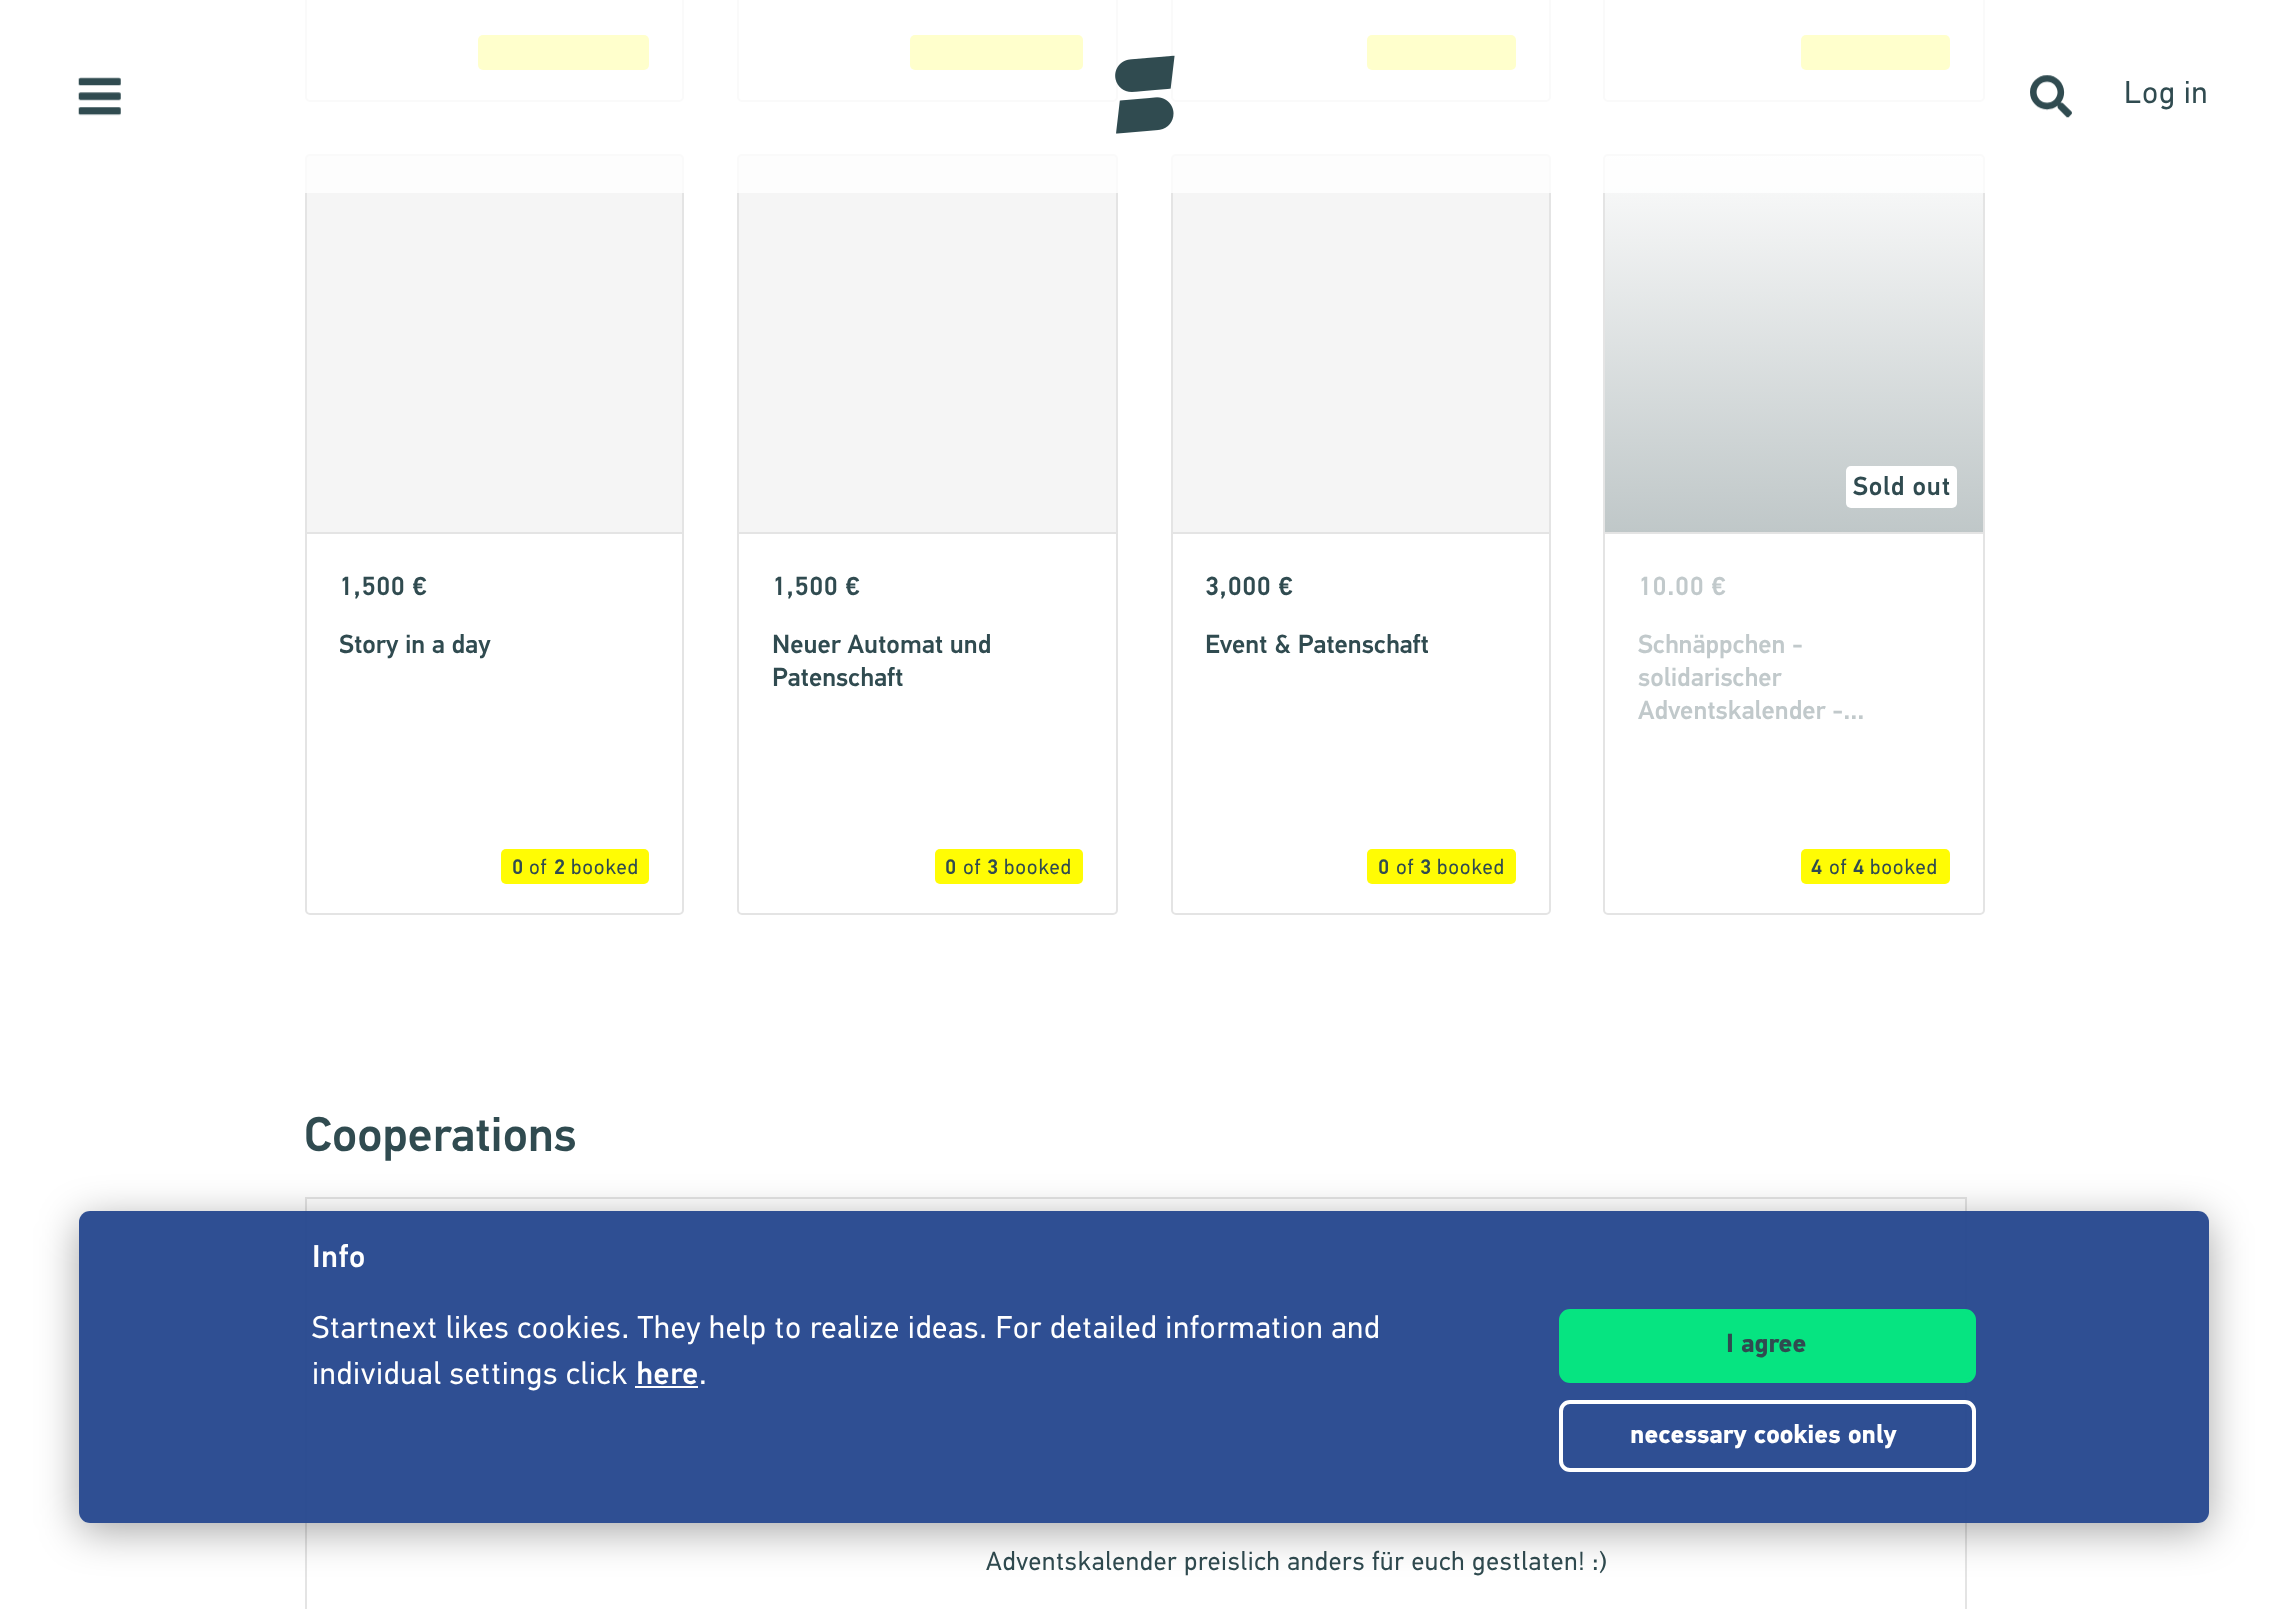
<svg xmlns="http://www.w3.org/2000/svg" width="2286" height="1609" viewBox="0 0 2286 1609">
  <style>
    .t1 { font: 31.5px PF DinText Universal; letter-spacing: 0.8px; fill: #304b50; }
    .t2 { font: 500 26.25px PF DinText Universal; letter-spacing: 0.8px; fill: #304b50; }
    .t3 { font: 500 26.25px PF DinText Universal; fill: #304b50; }
    .t4 { font: 500 21px PF DinText Universal; letter-spacing: 0.8px; fill: #304b50; }
    .t5 { font: 21px PF DinText Universal; letter-spacing: 0.8px; fill: #304b50; }
    .t6 { font: 500 26.25px PF DinText Universal; letter-spacing: 0.8px; fill: #c1c9cb; }
    .t7 { font: 500 26.25px PF DinText Universal; fill: #c1c9cb; }
    .t8 { font: 500 49px PF DinText Universal; fill: #304b50; }
    .t9 { font: 26.25px PF DinText Universal; letter-spacing: 0.8px; fill: #304b50; }
    .t10 { font: 500 31.5px PF DinText Universal; letter-spacing: 0.8px; fill: #fff; }
    .t11 { font: 31.5px PF DinText Universal; letter-spacing: 0.8px; fill: #fff; }
    .t12 { font: bold 26.25px PF DinText Universal; fill: #304b50; }
    .t13 { font: bold 26.25px PF DinText Universal; fill: #fff; }
  </style>
  <defs>
    <linearGradient id="g1" gradientUnits="userSpaceOnUse" x1="1794" y1="534" x2="1794" y2="154"><stop offset="0" stop-color="#bfc7c8"/><stop offset="1" stop-color="#fcfcfc"/></linearGradient>
    <clipPath id="clip1"><rect x="340" y="632" width="309" height="33"/></clipPath>
    <clipPath id="clip2"><path d="M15 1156H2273V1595H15ZM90 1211H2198C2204 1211 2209 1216 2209 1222V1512C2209 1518 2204 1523 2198 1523H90C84 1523 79 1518 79 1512V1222C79 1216 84 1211 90 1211Z" clip-rule="evenodd"/></clipPath>
  </defs>
  <rect width="100%" height="100%" fill="#fff"/>
  <rect x="306" y="-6" width="377" height="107" rx="4" fill="none" stroke="#e4e4e4" stroke-width="2"/>
  <rect x="478" y="35" width="171" height="35" rx="5" fill="#fffc04"/>
  <rect x="738" y="-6" width="379" height="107" rx="4" fill="none" stroke="#e4e4e4" stroke-width="2"/>
  <rect x="910" y="35" width="173" height="35" rx="5" fill="#fffc04"/>
  <rect x="1172" y="-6" width="378" height="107" rx="4" fill="none" stroke="#e4e4e4" stroke-width="2"/>
  <rect x="1367" y="35" width="149" height="35" rx="5" fill="#fffc04"/>
  <rect x="1604" y="-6" width="380" height="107" rx="4" fill="none" stroke="#e4e4e4" stroke-width="2"/>
  <rect x="1801" y="35" width="149" height="35" rx="5" fill="#fffc04"/>
  <path d="M310 154H679C682 154 684 156 684 159V534H305V159C305 156 307 154 310 154Z" fill="#f5f5f5"/>
  <rect x="305" y="532" width="379" height="2" fill="#e4e4e4"/>
  <rect x="306" y="155" width="377" height="759" rx="4" fill="none" stroke="#e4e4e4" stroke-width="2"/>
  <path d="M742 154H1113C1116 154 1118 156 1118 159V534H737V159C737 156 739 154 742 154Z" fill="#f5f5f5"/>
  <rect x="737" y="532" width="381" height="2" fill="#e4e4e4"/>
  <rect x="738" y="155" width="379" height="759" rx="4" fill="none" stroke="#e4e4e4" stroke-width="2"/>
  <path d="M1176 154H1546C1549 154 1551 156 1551 159V534H1171V159C1171 156 1173 154 1176 154Z" fill="#f5f5f5"/>
  <rect x="1171" y="532" width="380" height="2" fill="#e4e4e4"/>
  <rect x="1172" y="155" width="378" height="759" rx="4" fill="none" stroke="#e4e4e4" stroke-width="2"/>
  <path d="M1608 154H1980C1983 154 1985 156 1985 159V534H1603V159C1603 156 1605 154 1608 154Z" fill="url(#g1)"/>
  <rect x="1846" y="466" width="111" height="42" rx="5" fill="#fff"/>
  <rect x="1603" y="532" width="382" height="2" fill="#e4e4e4"/>
  <rect x="1604" y="155" width="380" height="759" rx="4" fill="none" stroke="#e4e4e4" stroke-width="2"/>
  <rect x="305" y="0" width="1680" height="193" fill="#ffffffcc"/>
  <image x="78" y="77" width="43" height="39" href="images/1.png"/>
  <image x="1115" y="55" width="60" height="79" href="images/2.png"/>
  <image x="2030" y="75" width="42" height="43" href="images/3.png"/>
  <text x="2124" y="103" class="t1">Log in</text>
  <text x="339" y="595" class="t2">1,500 €</text>
  <g clip-path="url(#clip1)">
    <text x="339" y="653" class="t3">Story in a day</text>
  </g>
  <rect x="501" y="849" width="148" height="35" rx="5" fill="#fffc04"/>
  <text x="512" y="874" class="t4">0</text>
  <text x="529" y="874" class="t5">of</text>
  <text x="554" y="874" class="t4">2</text>
  <text x="571" y="874" class="t5">booked</text>
  <text x="772" y="595" class="t2">1,500 €</text>
  <text x="772" y="653" class="t3">Neuer Automat und</text>
  <text x="772" y="686" class="t3">Patenschaft</text>
  <rect x="935" y="849" width="148" height="35" rx="5" fill="#fffc04"/>
  <text x="945" y="874" class="t4">0</text>
  <text x="963" y="874" class="t5">of</text>
  <text x="987" y="874" class="t4">3</text>
  <text x="1004" y="874" class="t5">booked</text>
  <text x="1205" y="595" class="t2">3,000 €</text>
  <text x="1205" y="653" class="t3">Event &amp; Patenschaft</text>
  <rect x="1367" y="849" width="149" height="35" rx="5" fill="#fffc04"/>
  <text x="1378" y="874" class="t4">0</text>
  <text x="1396" y="874" class="t5">of</text>
  <text x="1420" y="874" class="t4">3</text>
  <text x="1437" y="874" class="t5">booked</text>
  <text x="1853" y="495" class="t2">Sold out</text>
  <text x="1638" y="595" class="t6">10.00 €</text>
  <text x="1638" y="653" class="t7">Schnäppchen -</text>
  <text x="1638" y="686" class="t7">solidarischer</text>
  <text x="1638" y="719" class="t7">Adventskalender -...</text>
  <rect x="1801" y="849" width="149" height="35" rx="5" fill="#fffc04"/>
  <text x="1811" y="874" class="t4">4</text>
  <text x="1829" y="874" class="t5">of</text>
  <text x="1853" y="874" class="t4">4</text>
  <text x="1870" y="874" class="t5">booked</text>
  <text x="304" y="1151" class="t8">Cooperations</text>
  <rect x="306" y="1198" width="1660" height="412" fill="none" stroke="#e4e4e4" stroke-width="2"/>
  <text x="986" y="1570" class="t9">Adventskalender preislich anders für euch gestlaten! :)</text>
  <g clip-path="url(#clip2)">
    <rect x="79" y="1220" width="2130" height="311" rx="11" fill="#00000059" filter="blur(21px)"/>
  </g>
  <rect x="79" y="1211" width="2130" height="312" rx="11" fill="#24468df2"/>
  <text x="312" y="1267" class="t10">Info</text>
  <text x="312" y="1338" class="t11">Startnext likes cookies. They help to realize ideas. For detailed information and</text>
  <text x="312" y="1384" class="t11">individual settings click</text>
  <text x="636" y="1384" class="t10">here</text>
  <rect x="635" y="1386" width="63" height="2" fill="#fff"/>
  <text x="699" y="1384" class="t11">.</text>
  <rect x="1561" y="1311" width="413" height="70" rx="9" fill="#06e481" stroke="#06e481" stroke-width="4"/>
  <text x="1726" y="1352" class="t12">I agree</text>
  <rect x="1561" y="1402" width="413" height="68" rx="9" fill="none" stroke="#fff" stroke-width="4"/>
  <text x="1630" y="1443" class="t13">necessary cookies only</text>
</svg>
